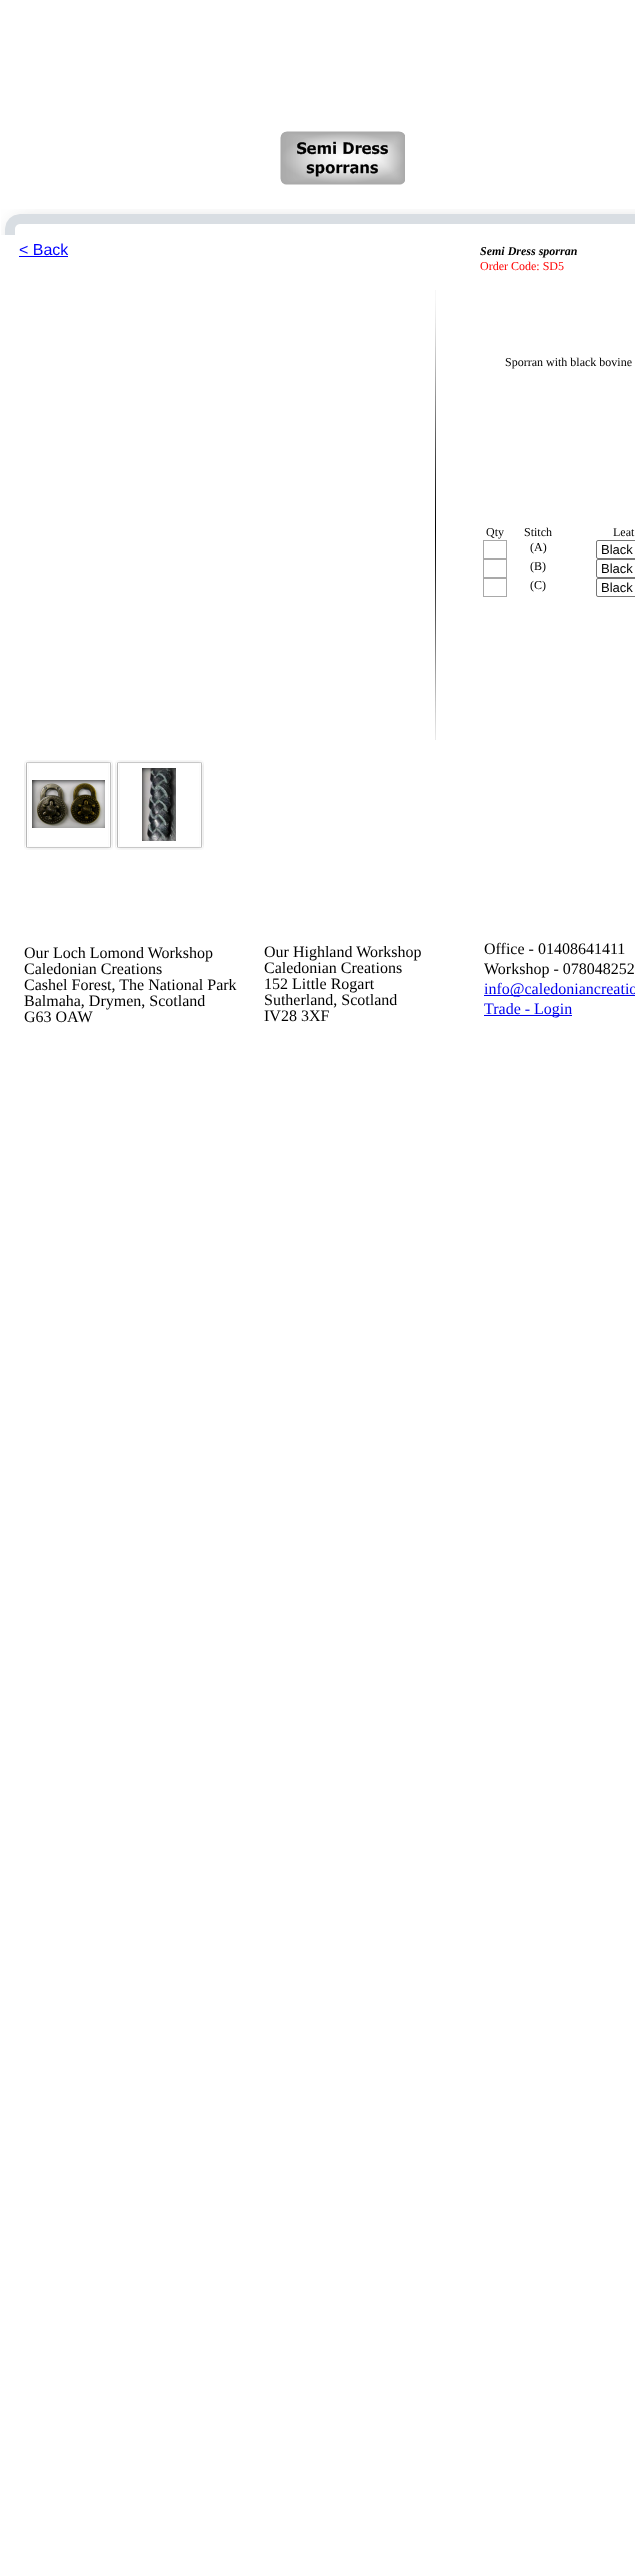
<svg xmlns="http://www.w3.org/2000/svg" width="635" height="2571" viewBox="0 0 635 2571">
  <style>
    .t1 { font: 16px Liberation Sans; fill: #00f; }
    .t2 { font: italic bold 12px Liberation Serif; fill: #000; }
    .t3 { font: 12px Liberation Serif; fill: #f00; }
    .t4 { font: 12px Liberation Serif; fill: #000; }
    .t5 { font: 13px Liberation Sans; fill: #000; }
    .t6 { font: 16px Liberation Serif; fill: #000; }
    .t7 { font: 16px Liberation Serif; fill: #00e; }
  </style>
  <rect width="100%" height="100%" fill="#fff"/>
  <image x="1" y="209" width="634" height="26" href="images/1.png"/>
  <image x="280" y="131" width="125" height="54" href="images/2.png"/>
  <text x="19" y="255" class="t1">&lt; Back</text>
  <rect x="19" y="256" width="49" height="1" fill="#00f"/>
  <text x="480" y="255" class="t2">Semi Dress sporran</text>
  <text x="480" y="270" class="t3">Order Code: SD5</text>
  <image x="435" y="290" width="1" height="450" href="images/3.png"/>
  <text x="505" y="366" class="t4">Sporran with black bovine</text>
  <text x="486" y="536" class="t4">Qty</text>
  <text x="524" y="536" class="t4">Stitch</text>
  <text x="613" y="536" class="t4">Leat</text>
  <rect x="483.5" y="540.5" width="23" height="18" fill="none" stroke="#a9a9a9"/>
  <text x="530" y="551" class="t4">(A)</text>
  <rect x="596.5" y="540.5" width="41" height="18" rx="1.5" fill="none" stroke="#767676"/>
  <text x="601" y="554" class="t5">Black</text>
  <rect x="483.5" y="559.5" width="23" height="18" fill="none" stroke="#a9a9a9"/>
  <text x="530" y="570" class="t4">(B)</text>
  <rect x="596.5" y="559.5" width="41" height="18" rx="1.5" fill="none" stroke="#767676"/>
  <text x="601" y="573" class="t5">Black</text>
  <rect x="483.5" y="578.5" width="23" height="18" fill="none" stroke="#a9a9a9"/>
  <text x="530" y="589" class="t4">(C)</text>
  <rect x="596.5" y="578.5" width="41" height="18" rx="1.5" fill="none" stroke="#767676"/>
  <text x="601" y="592" class="t5">Black</text>
  <image x="24" y="760" width="89" height="90" href="images/4.png"/>
  <image x="115" y="760" width="89" height="90" href="images/5.png"/>
  <text x="24" y="958" class="t6">Our Loch Lomond Workshop</text>
  <text x="24" y="974" class="t6">Caledonian Creations</text>
  <text x="24" y="990" class="t6">Cashel Forest, The National Park</text>
  <text x="24" y="1006" class="t6">Balmaha, Drymen, Scotland</text>
  <text x="24" y="1022" class="t6">G63 OAW</text>
  <text x="264" y="957" class="t6">Our Highland Workshop</text>
  <text x="264" y="973" class="t6">Caledonian Creations</text>
  <text x="264" y="989" class="t6">152 Little Rogart</text>
  <text x="264" y="1005" class="t6">Sutherland, Scotland</text>
  <text x="264" y="1021" class="t6">IV28 3XF</text>
  <text x="484" y="954" class="t6">Office - 01408641411</text>
  <text x="484" y="974" class="t6">Workshop - 078048252</text>
  <rect x="484" y="995" width="151" height="1" fill="#00e"/>
  <text x="484" y="994" class="t7">info@caledoniancreatio</text>
  <rect x="484" y="1015" width="88" height="1" fill="#00e"/>
  <text x="484" y="1014" class="t7">Trade - Login</text>
</svg>
